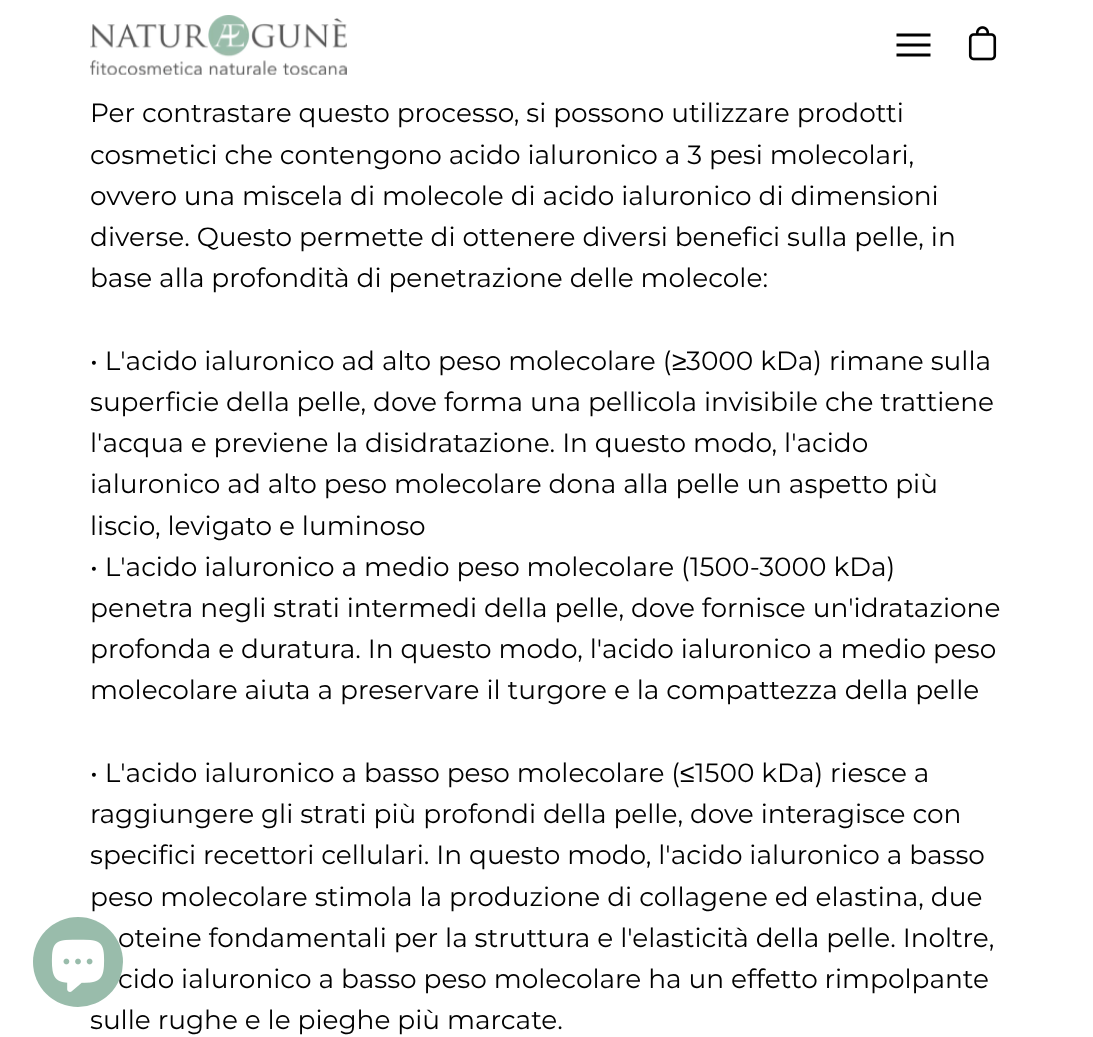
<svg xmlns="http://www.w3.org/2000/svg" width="1093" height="1037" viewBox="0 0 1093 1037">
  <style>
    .t1 { font: 26.4px Montserrat; fill: #000; }
    .t2 { font: 26.4px Liberation Sans; fill: #000; }
  </style>
  <rect width="100%" height="100%" fill="#fff"/>
  <image x="90" y="15" width="257" height="60" href="images/1.png"/>
  <path d="M930.5 33.5V36.5H896.5V33.5ZM930.5 53.5V56.5H896.5V53.5ZM930.5 43.5V46.5H896.5V43.5Z" fill="#000"/>
  <image x="968" y="26" width="29" height="35" href="images/2.png"/>
  <text x="118" y="947" class="t1">oteine fondamentali per la struttura e l'elasticità della pelle. Inoltre,</text>
  <text x="118" y="988" class="t1">cido ialuronico a basso peso molecolare ha un effetto rimpolpante</text>
  <circle cx="78" cy="962" r="45" fill="#99bcab"/>
  <image x="51" y="939" width="54" height="53" href="images/3.png"/>
  <text x="90" y="122" class="t1">Per contrastare questo processo, si possono utilizzare prodotti</text>
  <text x="90" y="164" class="t1">cosmetici che contengono acido ialuronico a 3 pesi molecolari,</text>
  <text x="90" y="205" class="t1">ovvero una miscela di molecole di acido ialuronico di dimensioni</text>
  <text x="90" y="246" class="t1">diverse. Questo permette di ottenere diversi benefici sulla pelle, in</text>
  <text x="90" y="287" class="t1">base alla profondità di penetrazione delle molecole:</text>
  <text x="90" y="370" class="t1">• L'acido ialuronico ad alto peso molecolare (</text>
  <text x="672" y="370" class="t2">≥</text>
  <text x="686" y="370" class="t1">3000 kDa) rimane sulla</text>
  <text x="90" y="411" class="t1">superficie della pelle, dove forma una pellicola invisibile che trattiene</text>
  <text x="90" y="452" class="t1">l'acqua e previene la disidratazione. In questo modo, l'acido</text>
  <text x="90" y="493" class="t1">ialuronico ad alto peso molecolare dona alla pelle un aspetto più</text>
  <text x="90" y="535" class="t1">liscio, levigato e luminoso</text>
  <text x="90" y="576" class="t1">• L'acido ialuronico a medio peso molecolare (1500-3000 kDa)</text>
  <text x="90" y="617" class="t1">penetra negli strati intermedi della pelle, dove fornisce un'idratazione</text>
  <text x="90" y="658" class="t1">profonda e duratura. In questo modo, l'acido ialuronico a medio peso</text>
  <text x="90" y="699" class="t1">molecolare aiuta a preservare il turgore e la compattezza della pelle</text>
  <text x="90" y="782" class="t1">• L'acido ialuronico a basso peso molecolare (</text>
  <text x="680" y="782" class="t2">≤</text>
  <text x="695" y="782" class="t1">1500 kDa) riesce a</text>
  <text x="90" y="823" class="t1">raggiungere gli strati più profondi della pelle, dove interagisce con</text>
  <text x="90" y="864" class="t1">specifici recettori cellulari. In questo modo, l'acido ialuronico a basso</text>
  <text x="90" y="906" class="t1">peso molecolare stimola la produzione di collagene ed elastina, due</text>
  <text x="90" y="1029" class="t1">sulle rughe e le pieghe più marcate.</text>
</svg>
